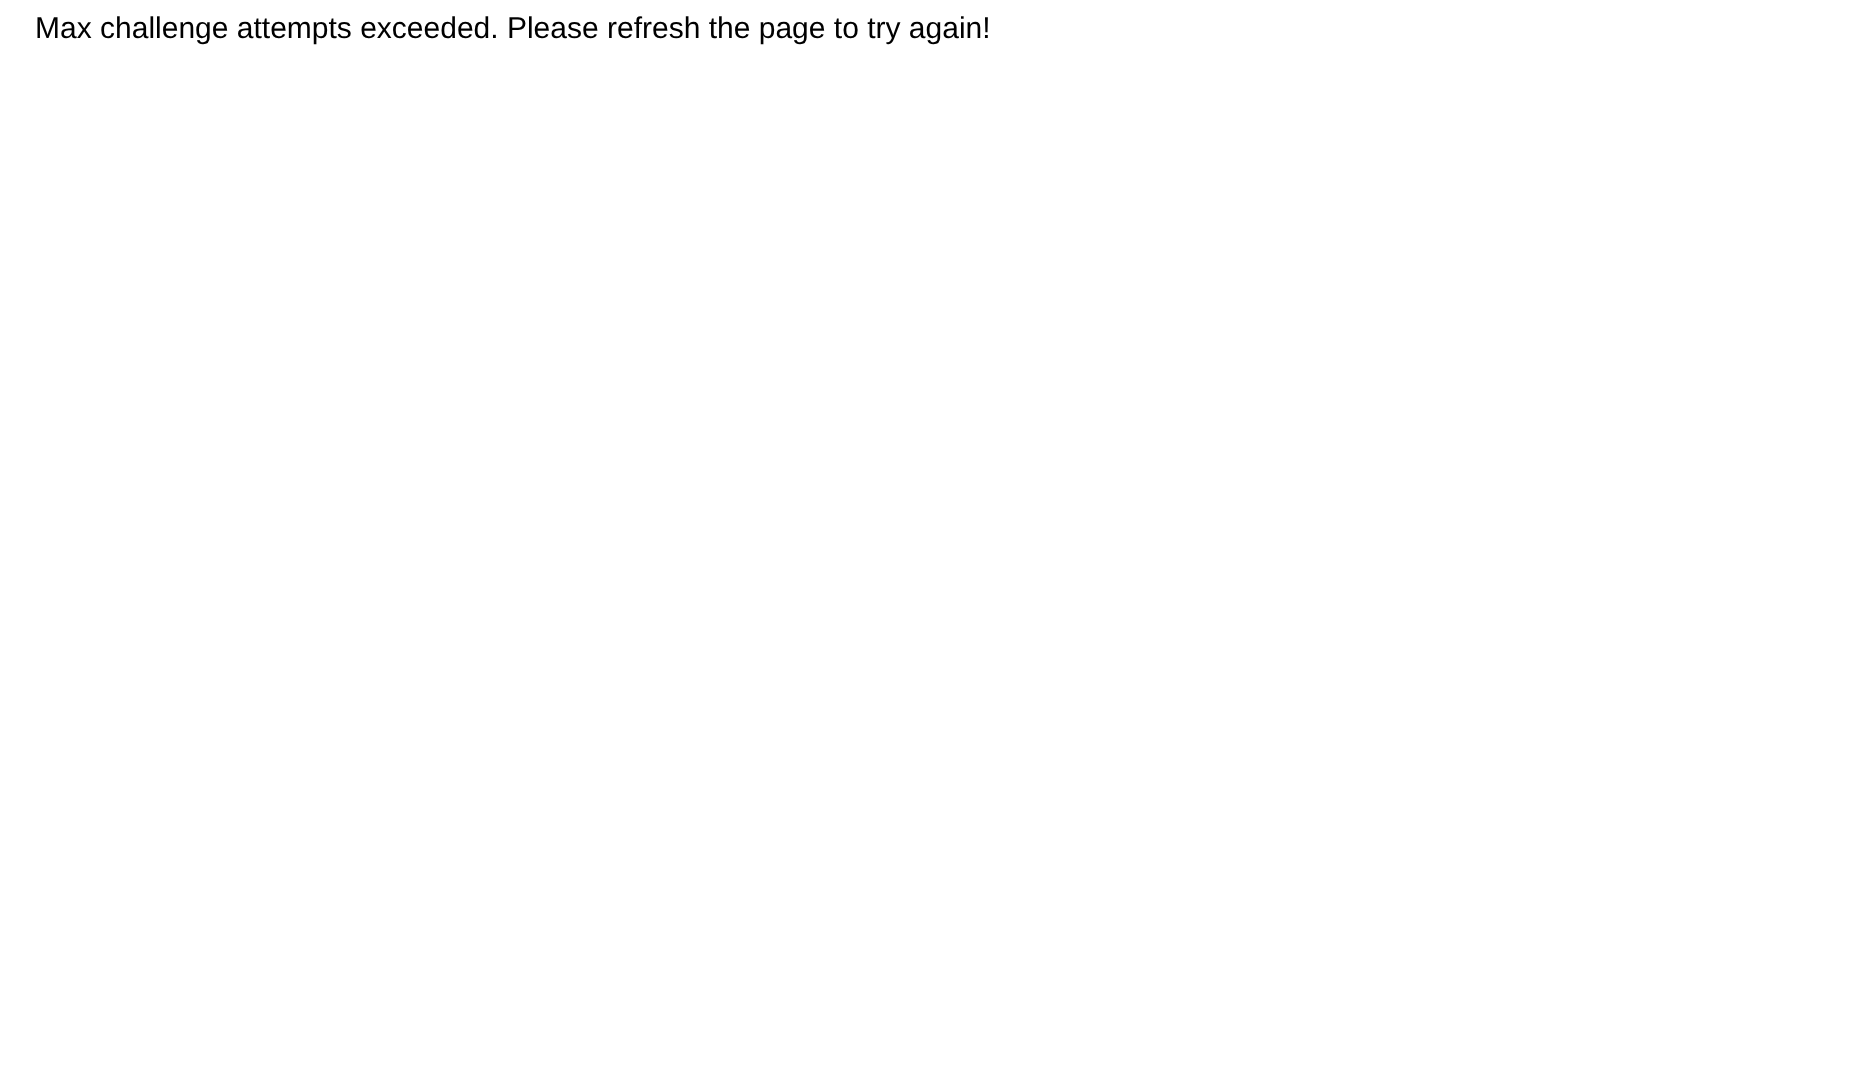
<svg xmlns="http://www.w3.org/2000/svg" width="1858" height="1088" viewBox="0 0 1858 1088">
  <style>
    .t1 { font: 30px Liberation Sans; fill: #000; }
  </style>
  <rect width="100%" height="100%" fill="#fff"/>
  <text x="35" y="38" class="t1">Max challenge attempts exceeded. Please refresh the page to try again!</text>
</svg>
